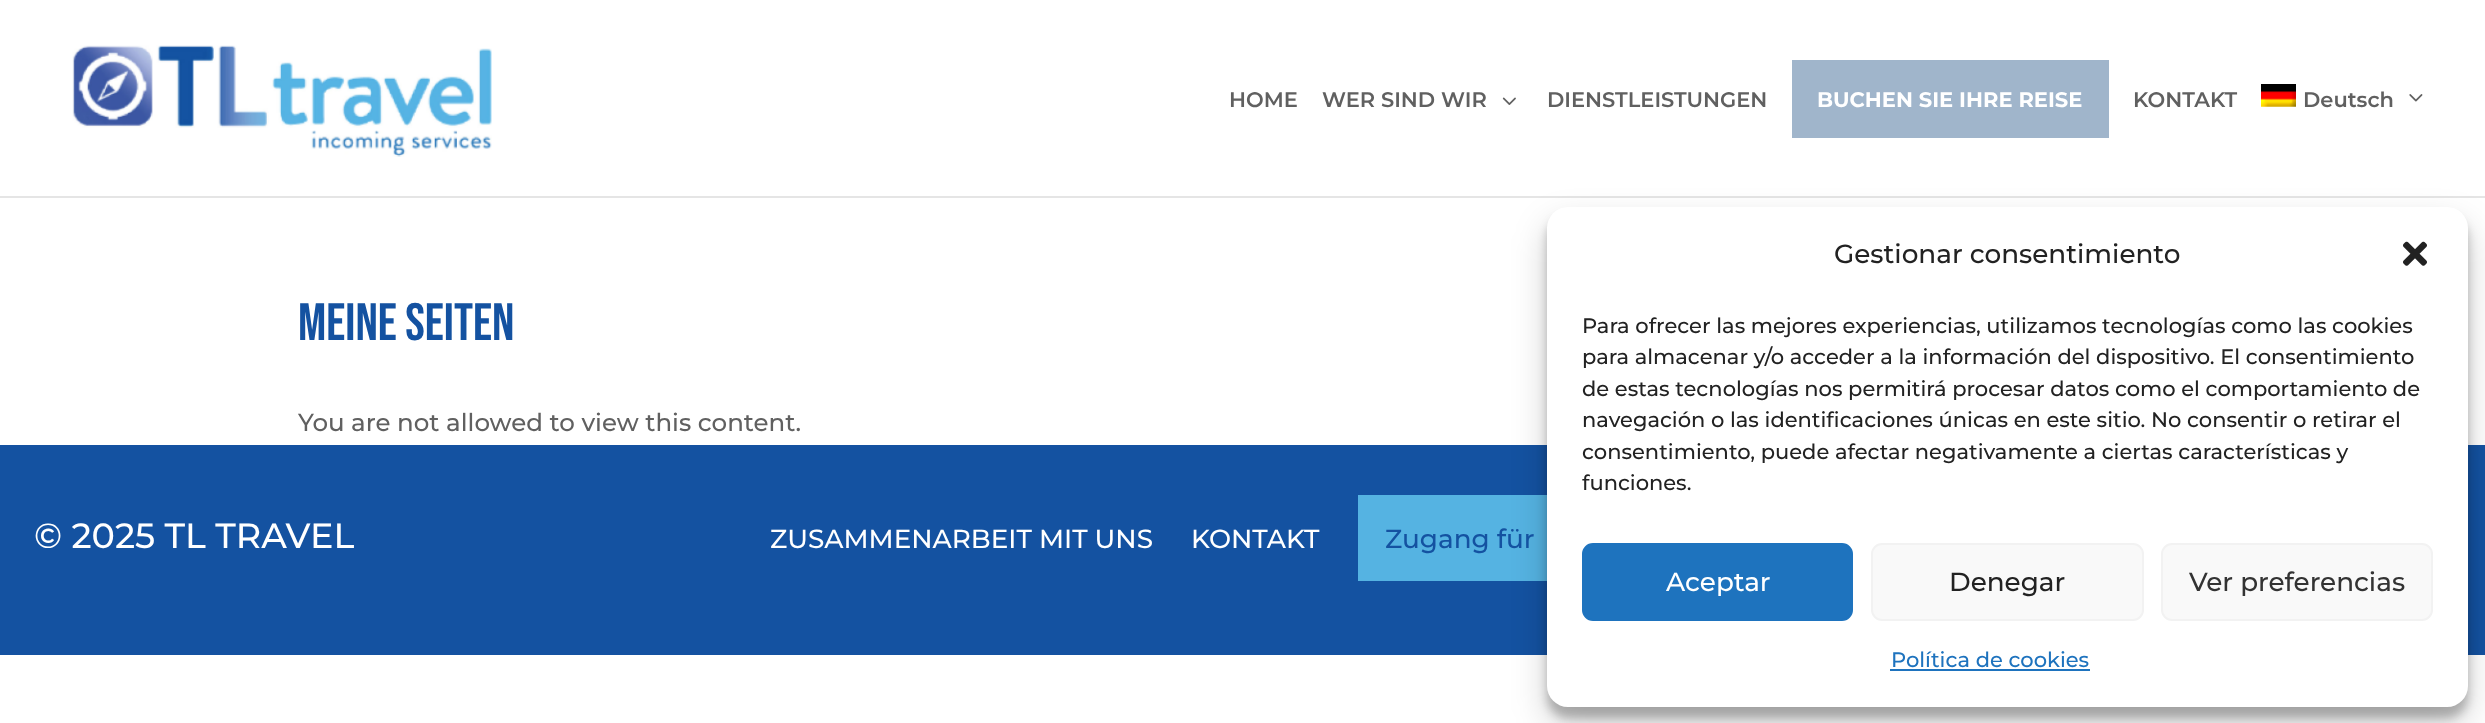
<svg xmlns="http://www.w3.org/2000/svg" width="2485" height="723" viewBox="0 0 2485 723">
  <style>
    .t1 { font: 100 21px 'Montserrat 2'; fill: #606060; }
    .t2 { font: 100 21px 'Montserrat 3'; fill: #fff; }
    .t3 { font: 52.5px Bebas Neue; fill: #1452a1; }
    .t4 { font: 100 24.5px Montserrat; fill: #606060; }
    .t5 { font: 100 35px Montserrat; fill: #fff; }
    .t6 { font: 100 26.25px Montserrat; fill: #fff; }
    .t7 { font: 100 26.25px Montserrat; fill: #1452a1; }
    .t8 { font: 100 26.25px Montserrat; fill: #222; }
    .t9 { font: 100 21px Montserrat; fill: #222; }
    .t10 { font: 100 26.25px Montserrat; fill: #333; }
    .t11 { font: 100 21px Montserrat; fill: #1e73be; }
  </style>
  <rect width="100%" height="100%" fill="#fff"/>
  <rect x="0" y="445" width="2485" height="210" fill="#1452a1"/>
  <rect x="1358" y="495" width="189" height="86" fill="#55b3e2"/>
  <rect x="1547" y="224" width="921" height="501" rx="21" fill="#00000030" filter="blur(17.5px)"/>
  <rect x="0" y="196" width="2485" height="2" fill="#0000001a"/>
  <image x="72" y="45" width="420" height="112" href="images/1.png"/>
  <text x="1229" y="107" class="t1">HOME</text>
  <text x="1322" y="107" class="t1">WER SIND WIR</text>
  <image x="1502" y="97" width="14" height="8" href="images/2.png"/>
  <text x="1547" y="107" class="t1">DIENSTLEISTUNGEN</text>
  <rect x="1792" y="60" width="317" height="78" fill="#a0b5cb"/>
  <text x="1817" y="107" class="t2">BUCHEN SIE IHRE REISE</text>
  <text x="2133" y="107" class="t1">KONTAKT</text>
  <image x="2261" y="84" width="35" height="23" href="images/3.png"/>
  <text x="2303" y="107" class="t1">Deutsch</text>
  <image x="2409" y="94" width="14" height="8" href="images/4.png"/>
  <text x="298" y="340" class="t3">Meine Seiten</text>
  <text x="298" y="431" class="t4">You are not allowed to view this content.</text>
  <text x="34" y="548" class="t5">© 2025 TL TRAVEL</text>
  <text x="770" y="548" class="t6">ZUSAMMENARBEIT MIT UNS</text>
  <text x="1191" y="548" class="t6">KONTAKT</text>
  <text x="1385" y="548" class="t7">Zugang für</text>
  <rect x="1547" y="217" width="921" height="501" rx="21" fill="#0000003b" filter="blur(5px)"/>
  <rect x="1547" y="207" width="921" height="500" rx="21" fill="#fff"/>
  <text x="1834" y="263" class="t8">Gestionar consentimiento</text>
  <image x="2403" y="241" width="24" height="25" href="images/5.png"/>
  <text x="1582" y="333" class="t9">Para ofrecer las mejores experiencias, utilizamos tecnologías como las cookies</text>
  <text x="1582" y="364" class="t9">para almacenar y/o acceder a la información del dispositivo. El consentimiento</text>
  <text x="1582" y="396" class="t9">de estas tecnologías nos permitirá procesar datos como el comportamiento de</text>
  <text x="1582" y="427" class="t9">navegación o las identificaciones únicas en este sitio. No consentir o retirar el</text>
  <text x="1582" y="459" class="t9">consentimiento, puede afectar negativamente a ciertas características y</text>
  <text x="1582" y="490" class="t9">funciones.</text>
  <rect x="1583" y="544" width="269" height="76" rx="10" fill="#1e73be" stroke="#1e73be" stroke-width="2"/>
  <text x="1666" y="591" class="t6">Aceptar</text>
  <rect x="1872" y="544" width="271" height="76" rx="10" fill="#f9f9f9" stroke="#f2f2f2" stroke-width="2"/>
  <text x="1949" y="591" class="t8">Denegar</text>
  <rect x="2162" y="544" width="270" height="76" rx="10" fill="#f9f9f9" stroke="#f2f2f2" stroke-width="2"/>
  <text x="2189" y="591" class="t10">Ver preferencias</text>
  <text x="1891" y="667" class="t11">Política de cookies</text>
  <rect x="1890" y="669" width="200" height="2" fill="#1e73be"/>
</svg>
